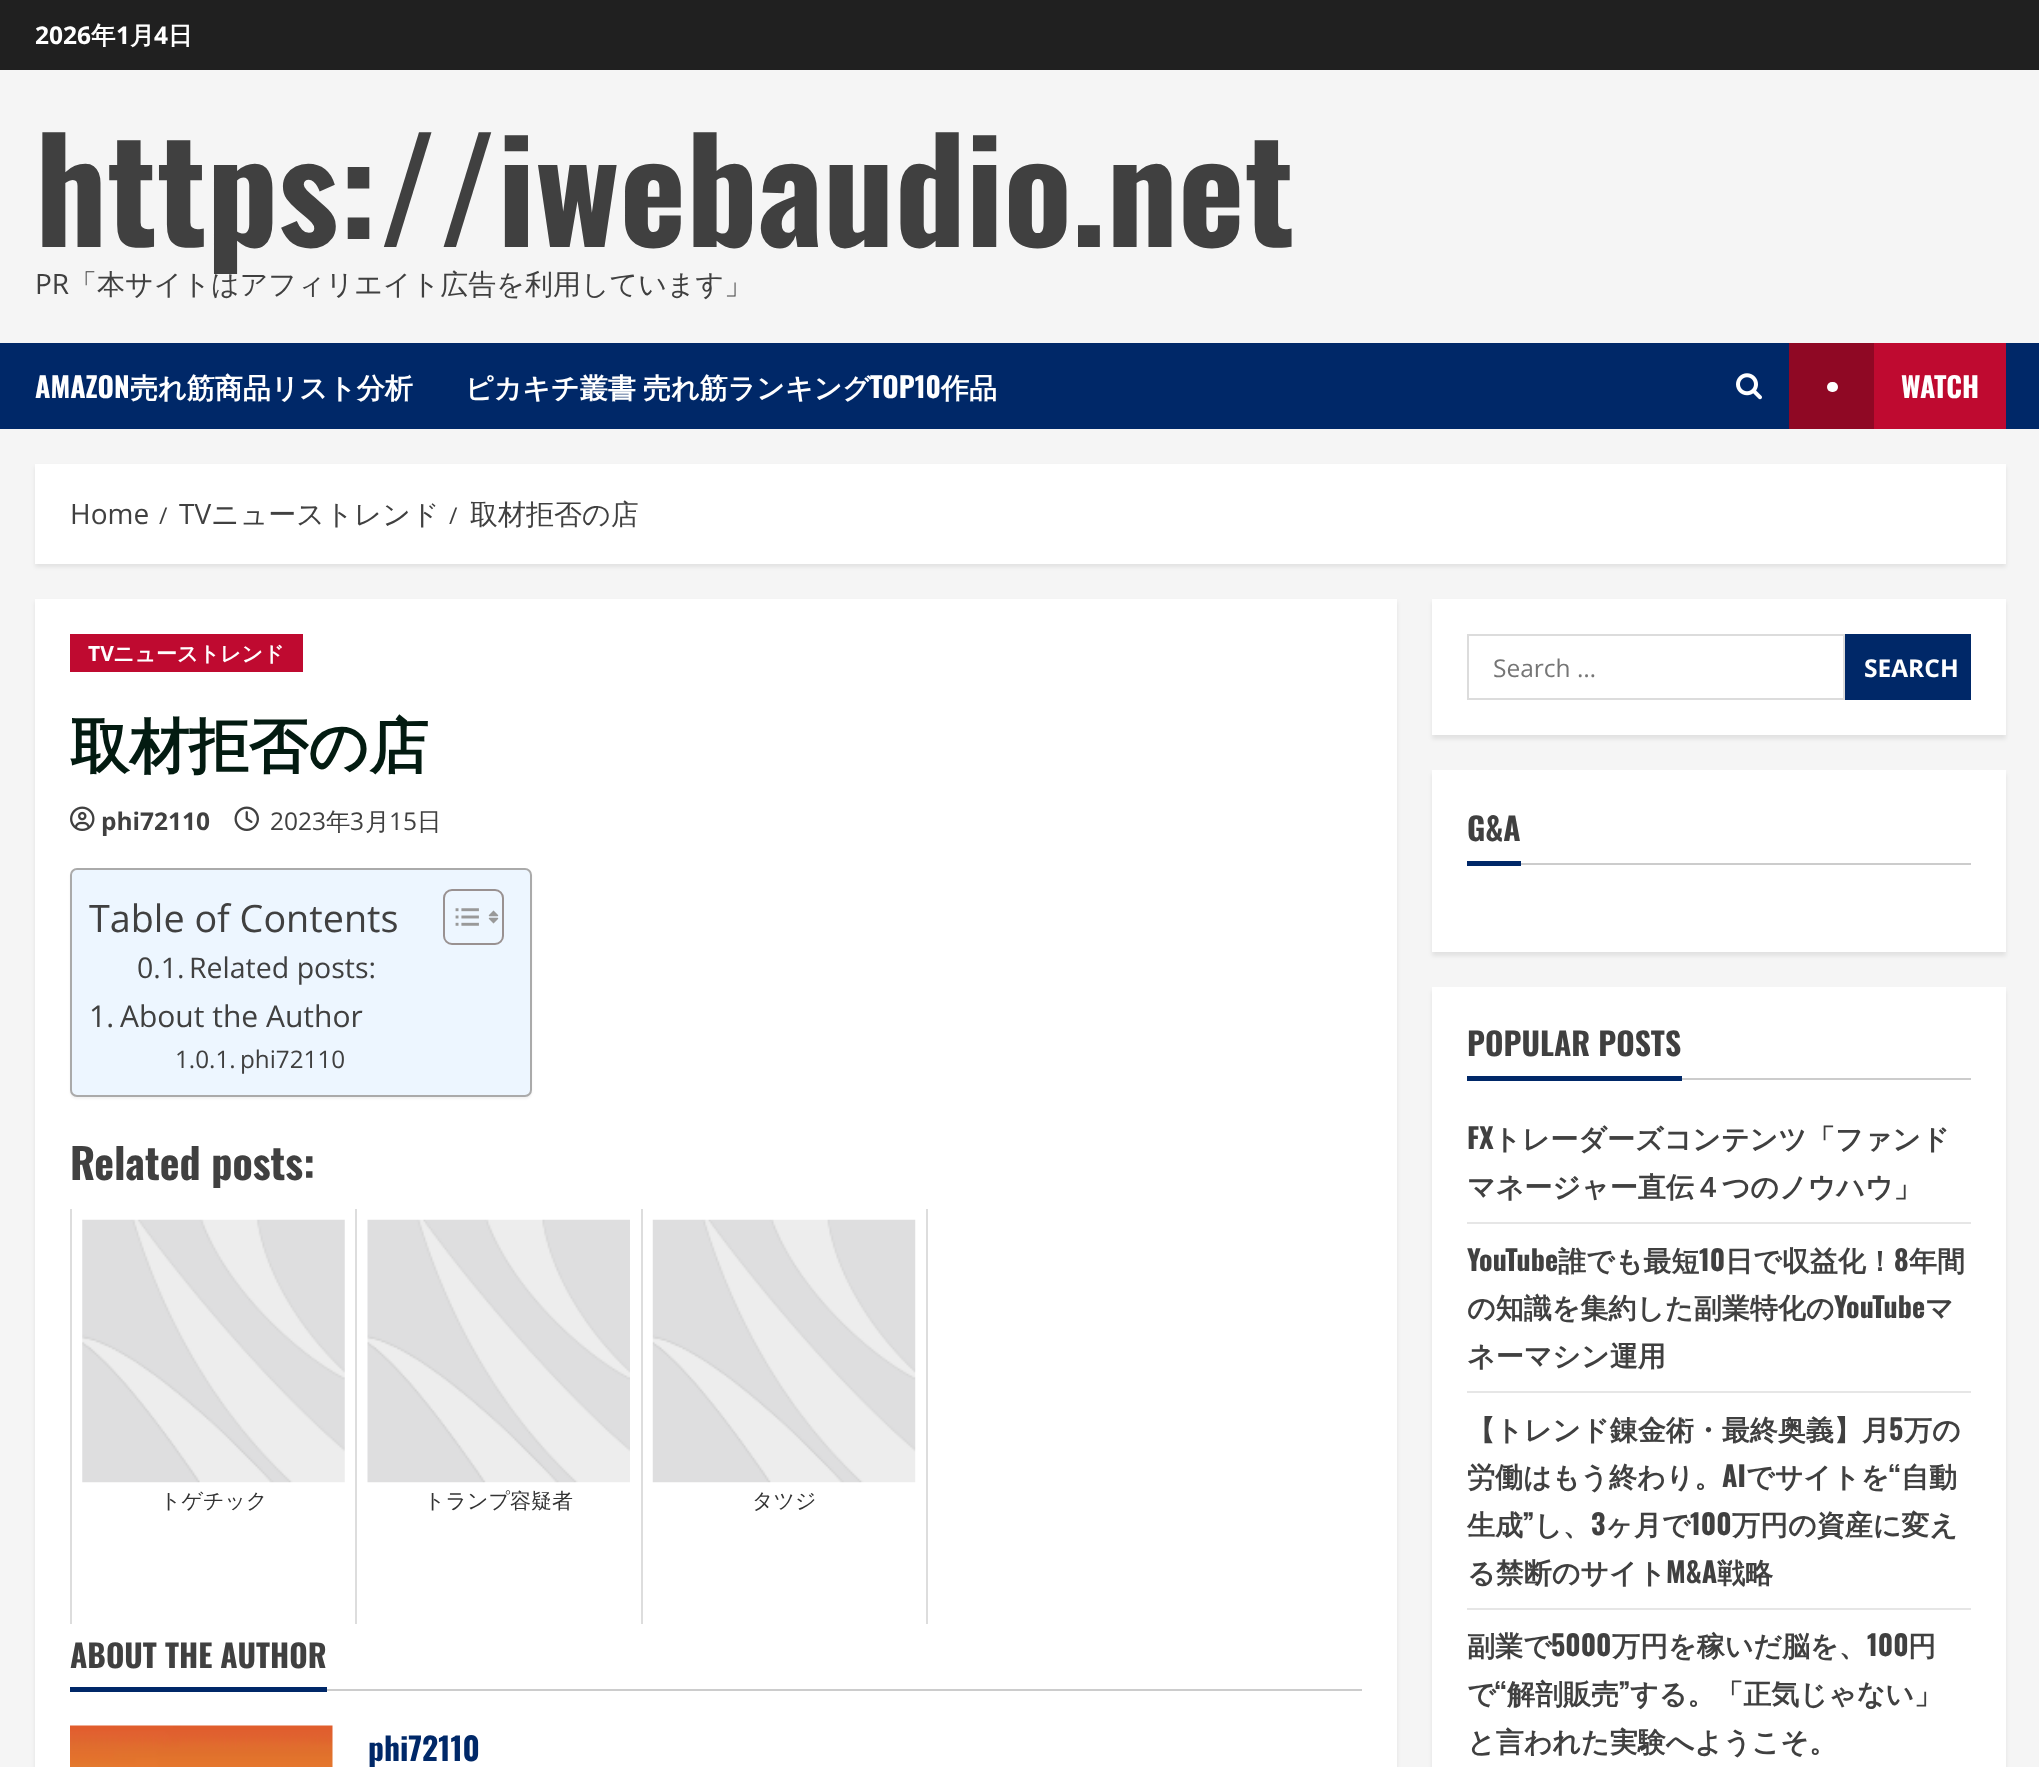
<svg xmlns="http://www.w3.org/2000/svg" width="2039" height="1767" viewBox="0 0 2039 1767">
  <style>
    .t1 { font: bold 24.5px Open Sans; fill: #fff; }
    .t2 { font: bold 24.5px WenQuanYi Zen Hei; fill: #fff; }
    .t3 { font: bold 141.75px Oswald; fill: #404040; }
    .t4 { font: 28px Open Sans; fill: #404040; }
    .t5 { font: 500 28px WenQuanYi Zen Hei; fill: #404040; }
    .t6 { font: bold 28px Oswald; fill: #fff; }
    .t7 { font: bold 28px WenQuanYi Zen Hei; fill: #fff; }
    .t8 { font: 23px Open Sans; fill: #404040; }
    .t9 { font: bold 21px Open Sans; fill: #fff; }
    .t10 { font: bold 21px WenQuanYi Zen Hei; fill: #fff; }
    .t11 { font: bold 59.5px WenQuanYi Zen Hei; fill: #031b11; }
    .t12 { font: bold 24.5px Open Sans; fill: #404040; }
    .t13 { font: 24.5px Open Sans; fill: #404040; }
    .t14 { font: 500 24.5px WenQuanYi Zen Hei; fill: #404040; }
    .t15 { font: 37.75px Open Sans; fill: #404040; }
    .t16 { font: 28.5px Open Sans; fill: #404040; }
    .t17 { font: 30px Open Sans; fill: #404040; }
    .t18 { font: 24.25px Open Sans; fill: #404040; }
    .t19 { font: bold 42px Oswald; fill: #404040; }
    .t20 { font: 500 21px WenQuanYi Zen Hei; fill: #333; }
    .t21 { font: bold 31.5px Oswald; fill: #404040; }
    .t22 { font: bold 31.5px Oswald; fill: #002868; }
    .t23 { font: 24.5px Open Sans; fill: #757575; }
    .t24 { font: bold 28px Oswald; fill: #404040; }
    .t25 { font: bold 28px WenQuanYi Zen Hei; fill: #404040; }
  </style>
  <rect width="100%" height="100%" fill="#f5f5f5"/>
  <rect x="0" y="0" width="2039" height="70" fill="#202020"/>
  <text x="35" y="44" class="t1">2026</text>
  <text x="91" y="44" class="t2">年</text>
  <text x="116" y="44" class="t1">1</text>
  <text x="130" y="44" class="t2">月</text>
  <text x="154" y="44" class="t1">4</text>
  <text x="168" y="44" class="t2">日</text>
  <text x="35" y="247" class="t3">https://iwebaudio.net</text>
  <text x="35" y="294" class="t4">PR</text>
  <text x="69" y="294" class="t5">「本サイトはアフィリエイト広告を利用しています」</text>
  <rect x="0" y="343" width="2039" height="86" fill="#002868"/>
  <text x="35" y="398" class="t6">AMAZON</text>
  <text x="130" y="398" class="t7">売れ筋商品リスト分析</text>
  <text x="465" y="398" word-spacing="-1" class="t7">ピカキチ叢書 売れ筋ランキング</text>
  <text x="870" y="398" class="t6">TOP10</text>
  <text x="941" y="398" class="t7">作品</text>
  <image x="1736" y="373" width="26" height="27" href="images/1.png"/>
  <rect x="1874" y="343" width="132" height="86" fill="#bf0a30"/>
  <rect x="1789" y="343" width="85" height="86" fill="#8f0824"/>
  <rect x="1827" y="382" width="11" height="10" rx="5" fill="#fff"/>
  <text x="1901" y="398" class="t6">WATCH</text>
  <rect x="35" y="467" width="1971" height="100" fill="#00000014" filter="blur(2px)"/>
  <rect x="35" y="464" width="1971" height="100" fill="#fff"/>
  <text x="70" y="524" class="t4">Home</text>
  <text x="159" y="524" class="t8">/</text>
  <text x="179" y="524" class="t4">TV</text>
  <text x="211" y="524" class="t5">ニューストレンド</text>
  <text x="449" y="524" class="t8">/</text>
  <text x="470" y="524" class="t5">取材拒否の店</text>
  <rect x="35" y="602" width="1362" height="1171" fill="#00000014" filter="blur(2px)"/>
  <rect x="35" y="599" width="1362" height="1168" fill="#fff"/>
  <rect x="70" y="634" width="233" height="38" fill="#bf0a30"/>
  <text x="88" y="661" class="t9">TV</text>
  <text x="113" y="661" class="t10">ニューストレンド</text>
  <text x="70" y="767" class="t11">取材拒否の店</text>
  <image x="70" y="806" width="25" height="25" href="images/2.png"/>
  <text x="101" y="830" class="t12">phi72110</text>
  <image x="234" y="806" width="25" height="25" href="images/3.png"/>
  <text x="270" y="830" class="t13">2023</text>
  <text x="326" y="830" class="t14">年</text>
  <text x="350" y="830" class="t13">3</text>
  <text x="365" y="830" class="t14">月</text>
  <text x="389" y="830" class="t13">15</text>
  <text x="417" y="830" class="t14">日</text>
  <rect x="70" y="870" width="462" height="229" rx="7" fill="#0000000d" filter="blur(1px)"/>
  <rect x="71" y="869" width="460" height="227" rx="6" fill="#edf6ff" stroke="#aaa" stroke-width="2"/>
  <text x="89" y="932" class="t15">Table of Contents</text>
  <rect x="444" y="890" width="59" height="54" rx="8" fill="none" stroke="#999191" stroke-width="2"/>
  <image x="455" y="908" width="24" height="18" href="images/4.png"/>
  <image x="488" y="910" width="11" height="14" href="images/5.png"/>
  <text x="137" y="978" class="t16">0.1.</text>
  <text x="189" y="978" class="t16">Related posts:</text>
  <text x="89" y="1027" class="t17">1.</text>
  <text x="120" y="1027" class="t17">About the Author</text>
  <text x="175" y="1068" class="t18">1.0.1.</text>
  <text x="240" y="1068" class="t18">phi72110</text>
  <text x="70" y="1180" class="t19">Related posts:</text>
  <rect x="70" y="1209" width="2" height="415" fill="#ddd"/>
  <image x="82" y="1219" width="263" height="264" href="images/6.png"/>
  <text x="160" y="1508" class="t20">トゲチック</text>
  <rect x="355" y="1209" width="2" height="415" fill="#ddd"/>
  <image x="367" y="1219" width="263" height="264" href="images/7.png"/>
  <text x="424" y="1508" class="t20">トランプ容疑者</text>
  <rect x="926" y="1209" width="2" height="415" fill="#ddd"/>
  <rect x="641" y="1209" width="2" height="415" fill="#ddd"/>
  <image x="652" y="1219" width="264" height="264" href="images/8.png"/>
  <text x="752" y="1508" class="t20">タツジ</text>
  <rect x="327" y="1689" width="1035" height="2" fill="#ccc"/>
  <text x="70" y="1668" class="t21">ABOUT THE AUTHOR</text>
  <rect x="70" y="1687" width="257" height="5" fill="#002868"/>
  <image x="70" y="1725" width="263" height="42" href="images/9.png"/>
  <text x="368" y="1761" class="t22">phi72110</text>
  <rect x="1432" y="602" width="574" height="137" fill="#00000014" filter="blur(2px)"/>
  <rect x="1432" y="599" width="574" height="136" fill="#fff"/>
  <rect x="1468" y="635" width="376" height="64" fill="none" stroke="#dcdcdc" stroke-width="2"/>
  <text x="1493" y="677" class="t23">Search …</text>
  <rect x="1845" y="634" width="126" height="66" fill="#002868"/>
  <text x="1864" y="677" class="t1">SEARCH</text>
  <rect x="1432" y="774" width="574" height="182" fill="#00000014" filter="blur(2px)"/>
  <rect x="1432" y="770" width="574" height="182" fill="#fff"/>
  <rect x="1521" y="863" width="450" height="2" fill="#ccc"/>
  <text x="1467" y="841" class="t21">G&amp;A</text>
  <rect x="1467" y="861" width="54" height="5" fill="#002868"/>
  <rect x="1432" y="991" width="574" height="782" fill="#00000014" filter="blur(2px)"/>
  <rect x="1432" y="987" width="574" height="780" fill="#fff"/>
  <rect x="1682" y="1078" width="289" height="2" fill="#ccc"/>
  <text x="1467" y="1056" class="t21">POPULAR POSTS</text>
  <rect x="1467" y="1076" width="215" height="5" fill="#002868"/>
  <rect x="1467" y="1222" width="504" height="2" fill="#e6e6e6"/>
  <text x="1467" y="1149" class="t24">FX</text>
  <text x="1493" y="1149" class="t25">トレーダーズコンテンツ「ファンド</text>
  <text x="1467" y="1197" class="t25">マネージャー直伝４つのノウハウ」</text>
  <rect x="1467" y="1391" width="504" height="2" fill="#e6e6e6"/>
  <text x="1467" y="1271" class="t24">YouTube</text>
  <text x="1558" y="1271" class="t25">誰でも最短</text>
  <text x="1699" y="1271" class="t24">10</text>
  <text x="1725" y="1271" class="t25">日で収益化！</text>
  <text x="1894" y="1271" class="t24">8</text>
  <text x="1909" y="1271" class="t25">年間</text>
  <text x="1467" y="1318" class="t25">の知識を集約した副業特化の</text>
  <text x="1834" y="1318" class="t24">YouTube</text>
  <text x="1925" y="1318" class="t25">マ</text>
  <text x="1467" y="1366" class="t25">ネーマシン運用</text>
  <rect x="1467" y="1608" width="504" height="2" fill="#e6e6e6"/>
  <text x="1467" y="1440" class="t25">【トレンド錬金術・最終奥義】月</text>
  <text x="1889" y="1440" class="t24">5</text>
  <text x="1904" y="1440" class="t25">万の</text>
  <text x="1467" y="1487" class="t25">労働はもう終わり。</text>
  <text x="1722" y="1487" class="t24">AI</text>
  <text x="1746" y="1487" class="t25">でサイトを</text>
  <text x="1889" y="1487" class="t24">“</text>
  <text x="1901" y="1487" class="t25">自動</text>
  <text x="1467" y="1535" class="t25">生成</text>
  <text x="1523" y="1535" class="t24">”</text>
  <text x="1534" y="1535" class="t25">し、</text>
  <text x="1591" y="1535" class="t24">3</text>
  <text x="1605" y="1535" class="t25">ヶ月で</text>
  <text x="1690" y="1535" class="t24">100</text>
  <text x="1732" y="1535" class="t25">万円の資産に変え</text>
  <text x="1467" y="1583" class="t25">る禁断のサイト</text>
  <text x="1666" y="1583" class="t24">M&amp;A</text>
  <text x="1717" y="1583" class="t25">戦略</text>
  <text x="1467" y="1656" class="t25">副業で</text>
  <text x="1551" y="1656" class="t24">5000</text>
  <text x="1612" y="1656" class="t25">万円を稼いだ脳を、</text>
  <text x="1867" y="1656" class="t24">100</text>
  <text x="1908" y="1656" class="t25">円</text>
  <text x="1467" y="1704" class="t25">で</text>
  <text x="1495" y="1704" class="t24">“</text>
  <text x="1507" y="1704" class="t25">解剖販売</text>
  <text x="1619" y="1704" class="t24">”</text>
  <text x="1630" y="1704" class="t25">する。「正気じゃない」</text>
  <text x="1467" y="1752" class="t25">と言われた実験へようこそ。</text>
</svg>
